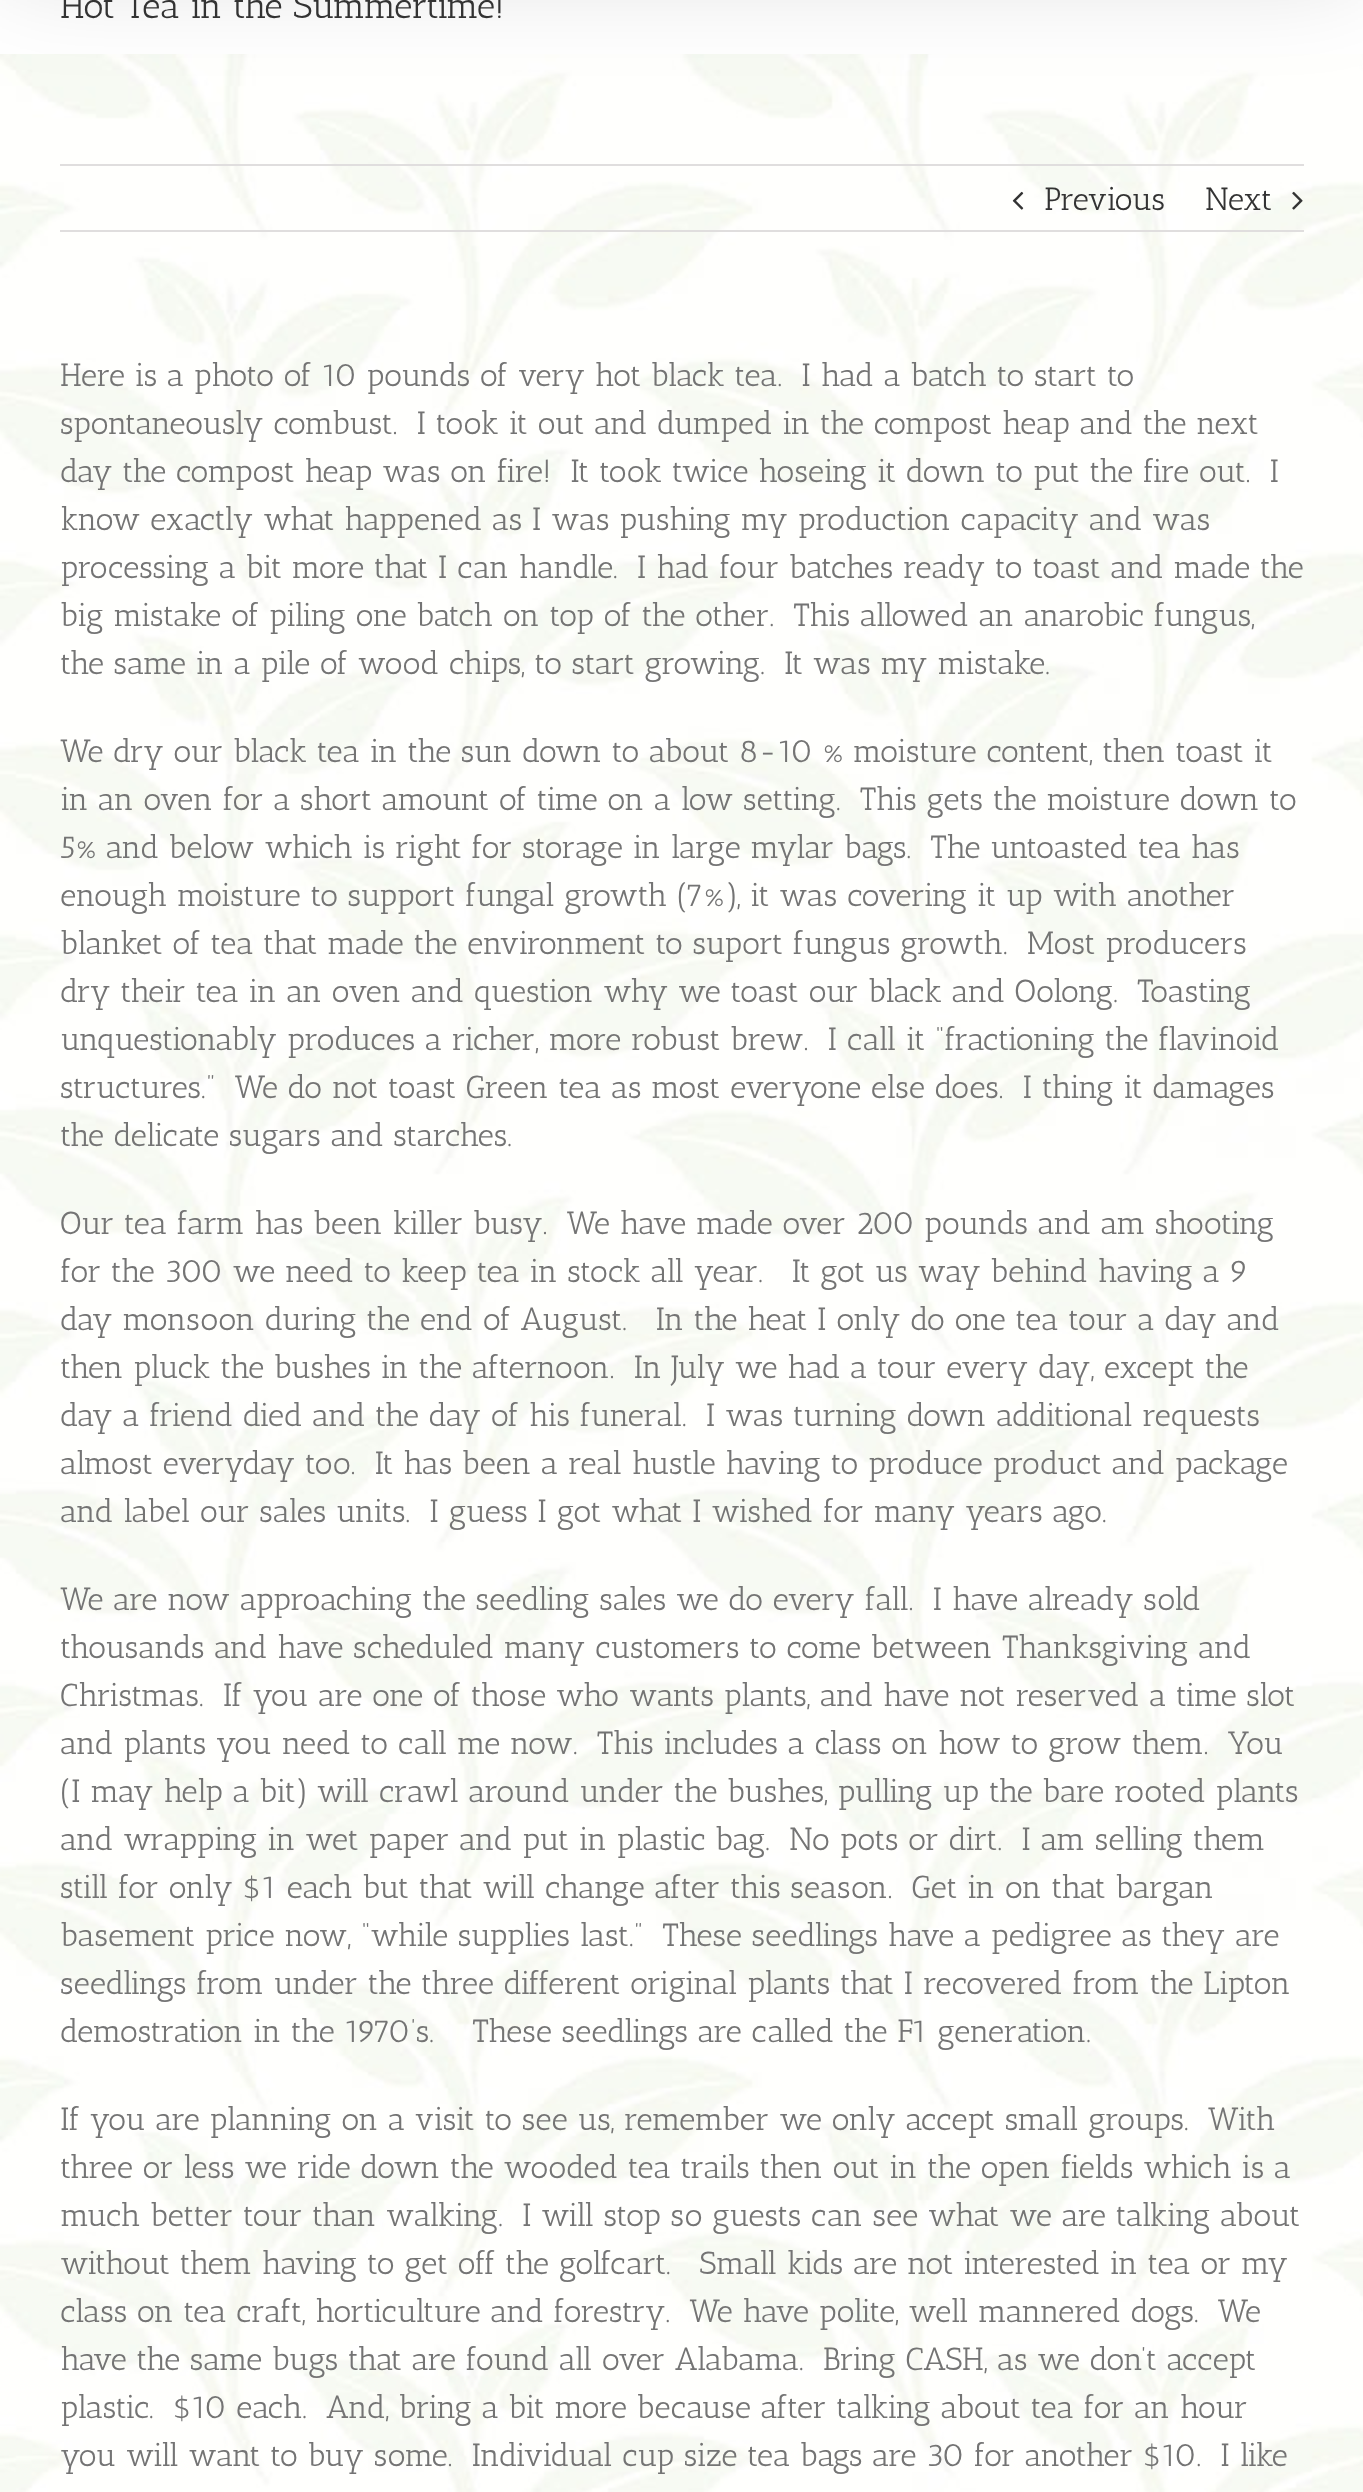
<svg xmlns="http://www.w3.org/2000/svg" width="1363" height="2492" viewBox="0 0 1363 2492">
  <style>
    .t1 { font: 36px Antic Slab; fill: #333; }
    .t2 { font: 32px Antic Slab; fill: #333; }
    .t3 { font: 32px Antic Slab; fill: #747474; }
  </style>
  <rect width="100%" height="100%" fill="#fff"/>
  <image x="0" y="54" width="1363" height="2438" href="images/1.png"/>
  <rect x="4" y="-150" width="1356" height="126" fill="#00000024" filter="blur(50px)"/>
  <text x="60" y="18" class="t1">Hot Tea in the Summertime!</text>
  <rect x="60" y="164" width="1244" height="2" fill="#e0dede"/>
  <rect x="60" y="230" width="1244" height="2" fill="#e0dede"/>
  <image x="1012" y="191" width="12" height="19" href="images/2.png"/>
  <text x="1044" y="210" class="t2">Previous</text>
  <text x="1205" y="210" class="t2">Next</text>
  <image x="1292" y="191" width="11" height="19" href="images/3.png"/>
  <text x="60" y="386" class="t3" xml:space="preserve">Here is a photo of 10 pounds of very hot black tea.  I had a batch to start to</text>
  <text x="60" y="434" class="t3" xml:space="preserve">spontaneously combust.  I took it out and dumped in the compost heap and the next</text>
  <text x="60" y="482" class="t3" xml:space="preserve">day the compost heap was on fire!  It took twice hoseing it down to put the fire out.  I</text>
  <text x="60" y="530" class="t3">know exactly what happened as I was pushing my production capacity and was</text>
  <text x="60" y="578" class="t3" xml:space="preserve">processing a bit more that I can handle.  I had four batches ready to toast and made the</text>
  <text x="60" y="626" class="t3" xml:space="preserve">big mistake of piling one batch on top of the other.  This allowed an anarobic fungus,</text>
  <text x="60" y="674" class="t3" xml:space="preserve">the same in a pile of wood chips, to start growing.  It was my mistake.</text>
  <text x="60" y="762" class="t3">We dry our black tea in the sun down to about 8-10 % moisture content, then toast it</text>
  <text x="60" y="810" class="t3" xml:space="preserve">in an oven for a short amount of time on a low setting.  This gets the moisture down to</text>
  <text x="60" y="858" class="t3" xml:space="preserve">5% and below which is right for storage in large mylar bags.  The untoasted tea has</text>
  <text x="60" y="906" class="t3">enough moisture to support fungal growth (7%), it was covering it up with another</text>
  <text x="60" y="954" class="t3" xml:space="preserve">blanket of tea that made the environment to suport fungus growth.  Most producers</text>
  <text x="60" y="1002" class="t3" xml:space="preserve">dry their tea in an oven and question why we toast our black and Oolong.  Toasting</text>
  <text x="60" y="1050" class="t3" xml:space="preserve">unquestionably produces a richer, more robust brew.  I call it “fractioning the flavinoid</text>
  <text x="60" y="1098" class="t3" xml:space="preserve">structures.”  We do not toast Green tea as most everyone else does.  I thing it damages</text>
  <text x="60" y="1146" class="t3">the delicate sugars and starches.</text>
  <text x="60" y="1234" class="t3" xml:space="preserve">Our tea farm has been killer busy.  We have made over 200 pounds and am shooting</text>
  <text x="60" y="1282" class="t3" xml:space="preserve">for the 300 we need to keep tea in stock all year.   It got us way behind having a 9</text>
  <text x="60" y="1330" class="t3" xml:space="preserve">day monsoon during the end of August.   In the heat I only do one tea tour a day and</text>
  <text x="60" y="1378" class="t3" xml:space="preserve">then pluck the bushes in the afternoon.  In July we had a tour every day, except the</text>
  <text x="60" y="1426" class="t3" xml:space="preserve">day a friend died and the day of his funeral.  I was turning down additional requests</text>
  <text x="60" y="1474" class="t3" xml:space="preserve">almost everyday too.  It has been a real hustle having to produce product and package</text>
  <text x="60" y="1522" class="t3" xml:space="preserve">and label our sales units.  I guess I got what I wished for many years ago.</text>
  <text x="60" y="1610" class="t3" xml:space="preserve">We are now approaching the seedling sales we do every fall.  I have already sold</text>
  <text x="60" y="1658" class="t3">thousands and have scheduled many customers to come between Thanksgiving and</text>
  <text x="60" y="1706" class="t3" xml:space="preserve">Christmas.  If you are one of those who wants plants, and have not reserved a time slot</text>
  <text x="60" y="1754" class="t3" xml:space="preserve">and plants you need to call me now.  This includes a class on how to grow them.  You</text>
  <text x="60" y="1802" class="t3">(I may help a bit) will crawl around under the bushes, pulling up the bare rooted plants</text>
  <text x="60" y="1850" class="t3" xml:space="preserve">and wrapping in wet paper and put in plastic bag.  No pots or dirt.  I am selling them</text>
  <text x="60" y="1898" class="t3" xml:space="preserve">still for only $1 each but that will change after this season.  Get in on that bargan</text>
  <text x="60" y="1946" class="t3" xml:space="preserve">basement price now, “while supplies last.”  These seedlings have a pedigree as they are</text>
  <text x="60" y="1994" class="t3">seedlings from under the three different original plants that I recovered from the Lipton</text>
  <text x="60" y="2042" class="t3" xml:space="preserve">demostration in the 1970’s.    These seedlings are called the F1 generation.</text>
  <text x="60" y="2130" class="t3" xml:space="preserve">If you are planning on a visit to see us, remember we only accept small groups.  With</text>
  <text x="60" y="2178" class="t3">three or less we ride down the wooded tea trails then out in the open fields which is a</text>
  <text x="60" y="2226" class="t3" xml:space="preserve">much better tour than walking.  I will stop so guests can see what we are talking about</text>
  <text x="60" y="2274" class="t3" xml:space="preserve">without them having to get off the golfcart.   Small kids are not interested in tea or my</text>
  <text x="60" y="2322" class="t3" xml:space="preserve">class on tea craft, horticulture and forestry.  We have polite, well mannered dogs.  We</text>
  <text x="60" y="2370" class="t3" xml:space="preserve">have the same bugs that are found all over Alabama.  Bring CASH, as we don’t accept</text>
  <text x="60" y="2418" class="t3" xml:space="preserve">plastic.  $10 each.  And, bring a bit more because after talking about tea for an hour</text>
  <text x="60" y="2466" class="t3" xml:space="preserve">you will want to buy some.  Individual cup size tea bags are 30 for another $10.  I like</text>
</svg>
